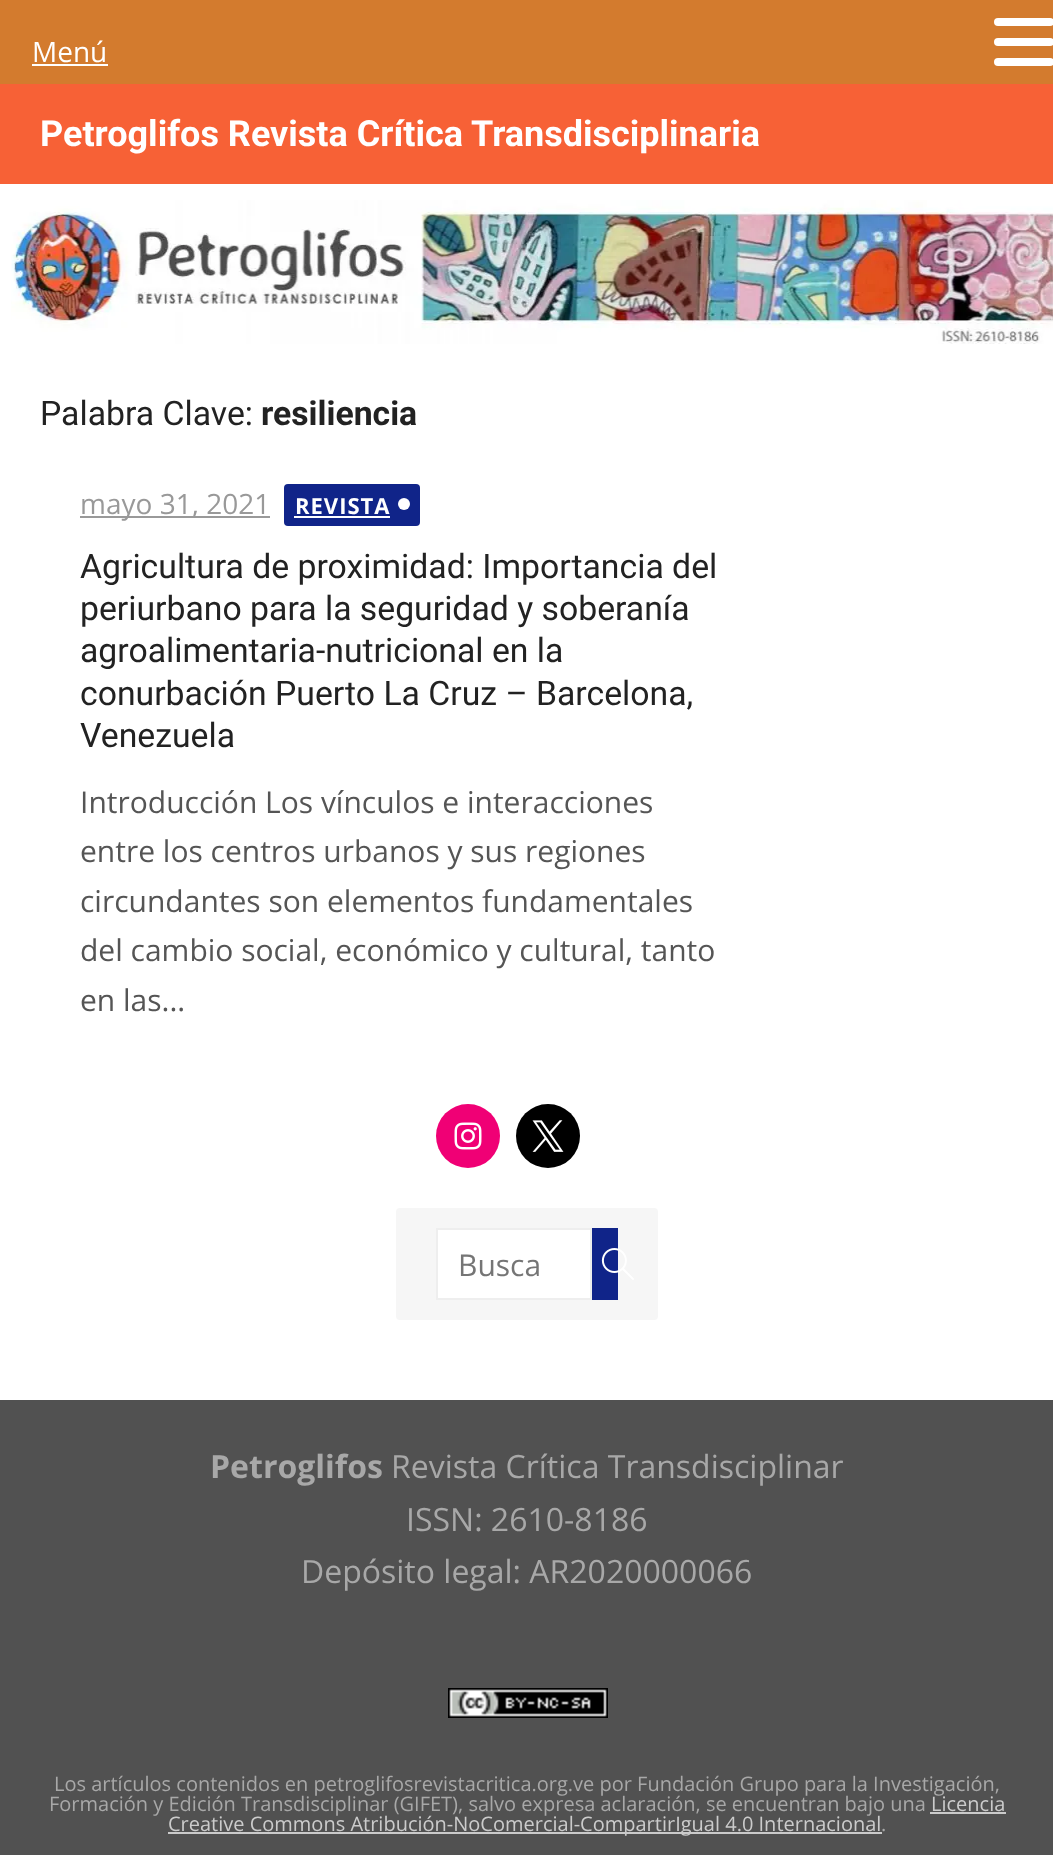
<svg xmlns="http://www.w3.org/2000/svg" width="1053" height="1855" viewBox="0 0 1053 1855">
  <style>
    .t1 { font: 28px Open Sans; fill: #fff; }
    .t2 { font: bold 36px Roboto; fill: #fff; }
    .t3 { font: 33.75px Roboto; fill: #222; }
    .t4 { font: bold 33.75px Roboto; fill: #222; }
    .t5 { font: 28px Open Sans; fill: #999; }
    .t6 { font: bold 22px Open Sans; letter-spacing: 1px; fill: #fff; }
    .t7 { font: 30px Open Sans; fill: #555; }
    .t8 { font: 30px Open Sans; fill: #757575; }
    .t9 { font: bold 32px Open Sans; fill: #a8a8a8; }
    .t10 { font: 32px Open Sans; fill: #a8a8a8; }
    .t11 { font: 20px Open Sans; fill: #a8a8a8; }
    .t12 { font: 20px Open Sans; fill: #cbcbcb; }
  </style>
  <rect width="100%" height="100%" fill="#fff"/>
  <rect x="0" y="0" width="1053" height="84" fill="#d37b2e"/>
  <text x="32" y="62" class="t1">Menú</text>
  <rect x="32" y="64" width="76" height="2" fill="#fff"/>
  <rect x="994" y="18" width="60" height="8" rx="4" fill="#fff"/>
  <rect x="994" y="38" width="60" height="8" rx="4" fill="#fff"/>
  <rect x="994" y="58" width="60" height="8" rx="4" fill="#fff"/>
  <rect x="0" y="84" width="1053" height="100" fill="#f76136"/>
  <text x="40" y="146" class="t2">Petroglifos Revista Crítica Transdisciplinaria</text>
  <image x="11" y="200" width="1042" height="144" href="images/1.png"/>
  <text x="40" y="425" class="t3">Palabra Clave:</text>
  <text x="261" y="425" class="t4">resiliencia</text>
  <rect x="80" y="516" width="190" height="2" fill="#999"/>
  <text x="80" y="514" class="t5">mayo 31, 2021</text>
  <rect x="284" y="484" width="136" height="42" rx="4" fill="#102489"/>
  <text x="295" y="514" class="t6">REVISTA</text>
  <rect x="294" y="516" width="96" height="2" fill="#fff"/>
  <circle cx="404" cy="504" r="6" fill="#fff"/>
  <text x="80" y="578" class="t3">Agricultura de proximidad: Importancia del</text>
  <text x="80" y="620" class="t3">periurbano para la seguridad y soberanía</text>
  <text x="80" y="662" class="t3">agroalimentaria-nutricional en la</text>
  <text x="80" y="705" class="t3">conurbación Puerto La Cruz – Barcelona,</text>
  <text x="80" y="747" class="t3">Venezuela</text>
  <text x="80" y="813" class="t7">Introducción Los vínculos e interacciones</text>
  <text x="80" y="862" class="t7">entre los centros urbanos y sus regiones</text>
  <text x="80" y="912" class="t7">circundantes son elementos fundamentales</text>
  <text x="80" y="961" class="t7">del cambio social, económico y cultural, tanto</text>
  <text x="80" y="1011" class="t7">en las...</text>
  <circle cx="468" cy="1136" r="32" fill="#f00075"/>
  <image x="454" y="1122" width="28" height="28" href="images/2.png"/>
  <circle cx="548" cy="1136" r="32" fill="#000"/>
  <image x="532" y="1120" width="32" height="32" href="images/3.png"/>
  <rect x="396" y="1208" width="262" height="112" rx="4" fill="#f6f6f6"/>
  <rect x="437" y="1229" width="154" height="70" fill="#fff" stroke="#eee" stroke-width="2"/>
  <text x="458" y="1276" class="t8">Busca</text>
  <rect x="592" y="1228" width="26" height="72" fill="#102489"/>
  <image x="601" y="1248" width="33" height="32" href="images/4.png"/>
  <rect x="0" y="1400" width="1053" height="455" fill="#515151"/>
  <text x="210" y="1478" class="t9">Petroglifos</text>
  <text x="391" y="1478" class="t10">Revista Crítica Transdisciplinar</text>
  <text x="406" y="1531" class="t10">ISSN: 2610-8186</text>
  <text x="301" y="1583" class="t10">Depósito legal: AR2020000066</text>
  <image x="448" y="1688" width="160" height="30" href="images/5.png"/>
  <text x="54" y="1791" class="t11">Los artículos contenidos en petroglifosrevistacritica.org.ve por Fundación Grupo para la Investigación,</text>
  <text x="49" y="1811" class="t11">Formación y Edición Transdisciplinar (GIFET), salvo expresa aclaración, se encuentran bajo una</text>
  <text x="931" y="1811" class="t12">Licencia</text>
  <rect x="930" y="1812" width="76" height="2" fill="#cbcbcb"/>
  <rect x="168" y="1832" width="714" height="2" fill="#cbcbcb"/>
  <text x="168" y="1831" class="t12">Creative Commons Atribución-NoComercial-CompartirIgual 4.0 Internacional</text>
  <text x="881" y="1831" class="t11">.</text>
</svg>
